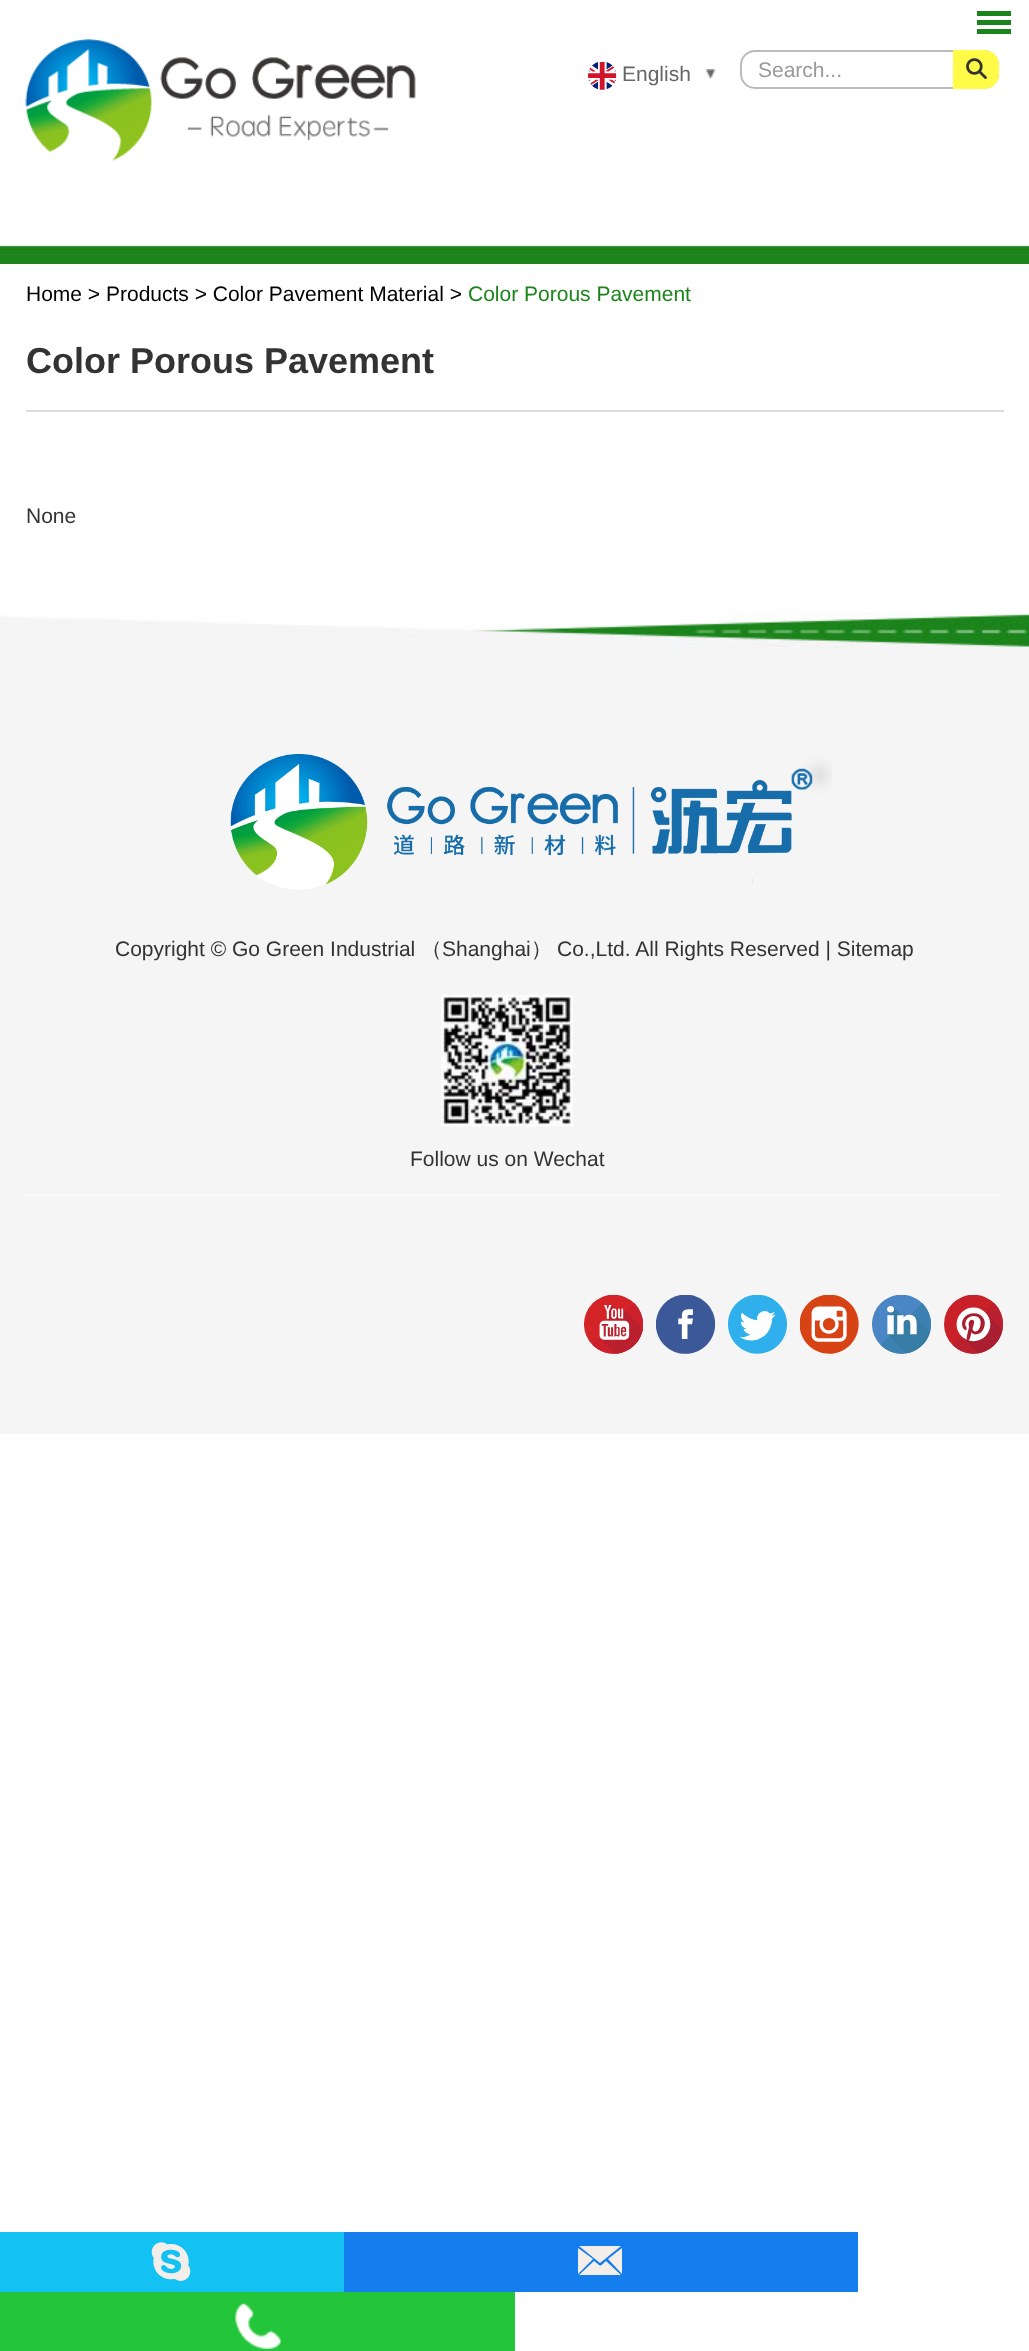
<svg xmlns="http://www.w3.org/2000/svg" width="1029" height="2351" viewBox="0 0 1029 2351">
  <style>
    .t1 { font: 21px Liberation Sans; fill: #666; }
    .t2 { font: 21px Liberation Sans; fill: #999; }
    .t3 { font: 21px Liberation Sans; fill: #000; }
    .t4 { font: 21px Liberation Sans; fill: #1c841c; }
    .t5 { font: bold 36px Liberation Sans; fill: #333; }
    .t6 { font: 21px Liberation Sans; fill: #333; }
    .t7 { font: 500 21px WenQuanYi Zen Hei; fill: #333; }
  </style>
  <rect width="100%" height="100%" fill="#fff"/>
  <rect x="977" y="11" width="34" height="5" fill="#1c841c"/>
  <rect x="977" y="20" width="34" height="5" fill="#1c841c"/>
  <rect x="977" y="29" width="34" height="5" fill="#1c841c"/>
  <image x="25" y="39" width="391" height="122" href="images/1.png"/>
  <image x="706" y="69" width="10" height="9" href="images/2.png"/>
  <image x="588" y="62" width="29" height="28" href="images/3.png"/>
  <text x="622" y="81" class="t1">English</text>
  <rect x="741" y="51" width="257" height="37" rx="14" fill="none" stroke="#bbb" stroke-width="2"/>
  <text x="758" y="77" class="t2">Search...</text>
  <path d="M953 50H984C992.5 50 999 56.5 999 65V74C999 82.5 992.5 89 984 89H953Z" fill="#fffb47"/>
  <image x="966" y="58" width="21" height="21" href="images/4.png"/>
  <image x="0" y="245" width="1029" height="19" href="images/5.png"/>
  <text x="26" y="301" class="t3">Home &gt; Products &gt; Color Pavement Material &gt;</text>
  <text x="468" y="301" class="t4">Color Porous Pavement</text>
  <rect x="26" y="410" width="978" height="2" fill="#dcdcdc"/>
  <text x="26" y="373" class="t5">Color Porous Pavement</text>
  <text x="26" y="523" class="t6">None</text>
  <rect x="0" y="648" width="1029" height="786" fill="#f5f5f5"/>
  <image x="0" y="588" width="1029" height="60" href="images/6.png"/>
  <image x="230" y="754" width="602" height="136" href="images/7.png"/>
  <text x="115" y="956" class="t6">Copyright © Go Green Industrial</text>
  <text x="421" y="956" class="t7">（</text>
  <text x="442" y="956" class="t6">Shanghai</text>
  <text x="531" y="956" class="t7">）</text>
  <text x="557" y="956" class="t6">Co.,Ltd. All Rights Reserved | Sitemap</text>
  <image x="441" y="994" width="132" height="133" href="images/8.png"/>
  <text x="410" y="1166" class="t6">Follow us on Wechat</text>
  <rect x="26" y="1194" width="978" height="2" fill="#f9f9f9"/>
  <image x="584" y="1295" width="59" height="59" href="images/9.png"/>
  <image x="656" y="1295" width="60" height="59" href="images/10.png"/>
  <image x="728" y="1295" width="59" height="59" href="images/11.png"/>
  <image x="800" y="1295" width="59" height="59" href="images/12.png"/>
  <image x="872" y="1295" width="59" height="59" href="images/13.png"/>
  <image x="944" y="1295" width="59" height="59" href="images/14.png"/>
  <rect x="0" y="2232" width="344" height="60" fill="#13c1f3"/>
  <image x="151" y="2242" width="40" height="39" href="images/15.png"/>
  <rect x="344" y="2232" width="514" height="60" fill="#157eee"/>
  <path d="M600 2263L579 2246H621ZM622 2274L608 2259L622 2248ZM578 2274V2248L593 2259ZM620 2275H579L594 2261C602 2267 599 2267 606 2261L621 2275Z" fill="#f4eeeb"/>
  <rect x="0" y="2292" width="515" height="59" fill="#23c53a"/>
  <image x="235" y="2303" width="46" height="46" href="images/16.png"/>
</svg>
